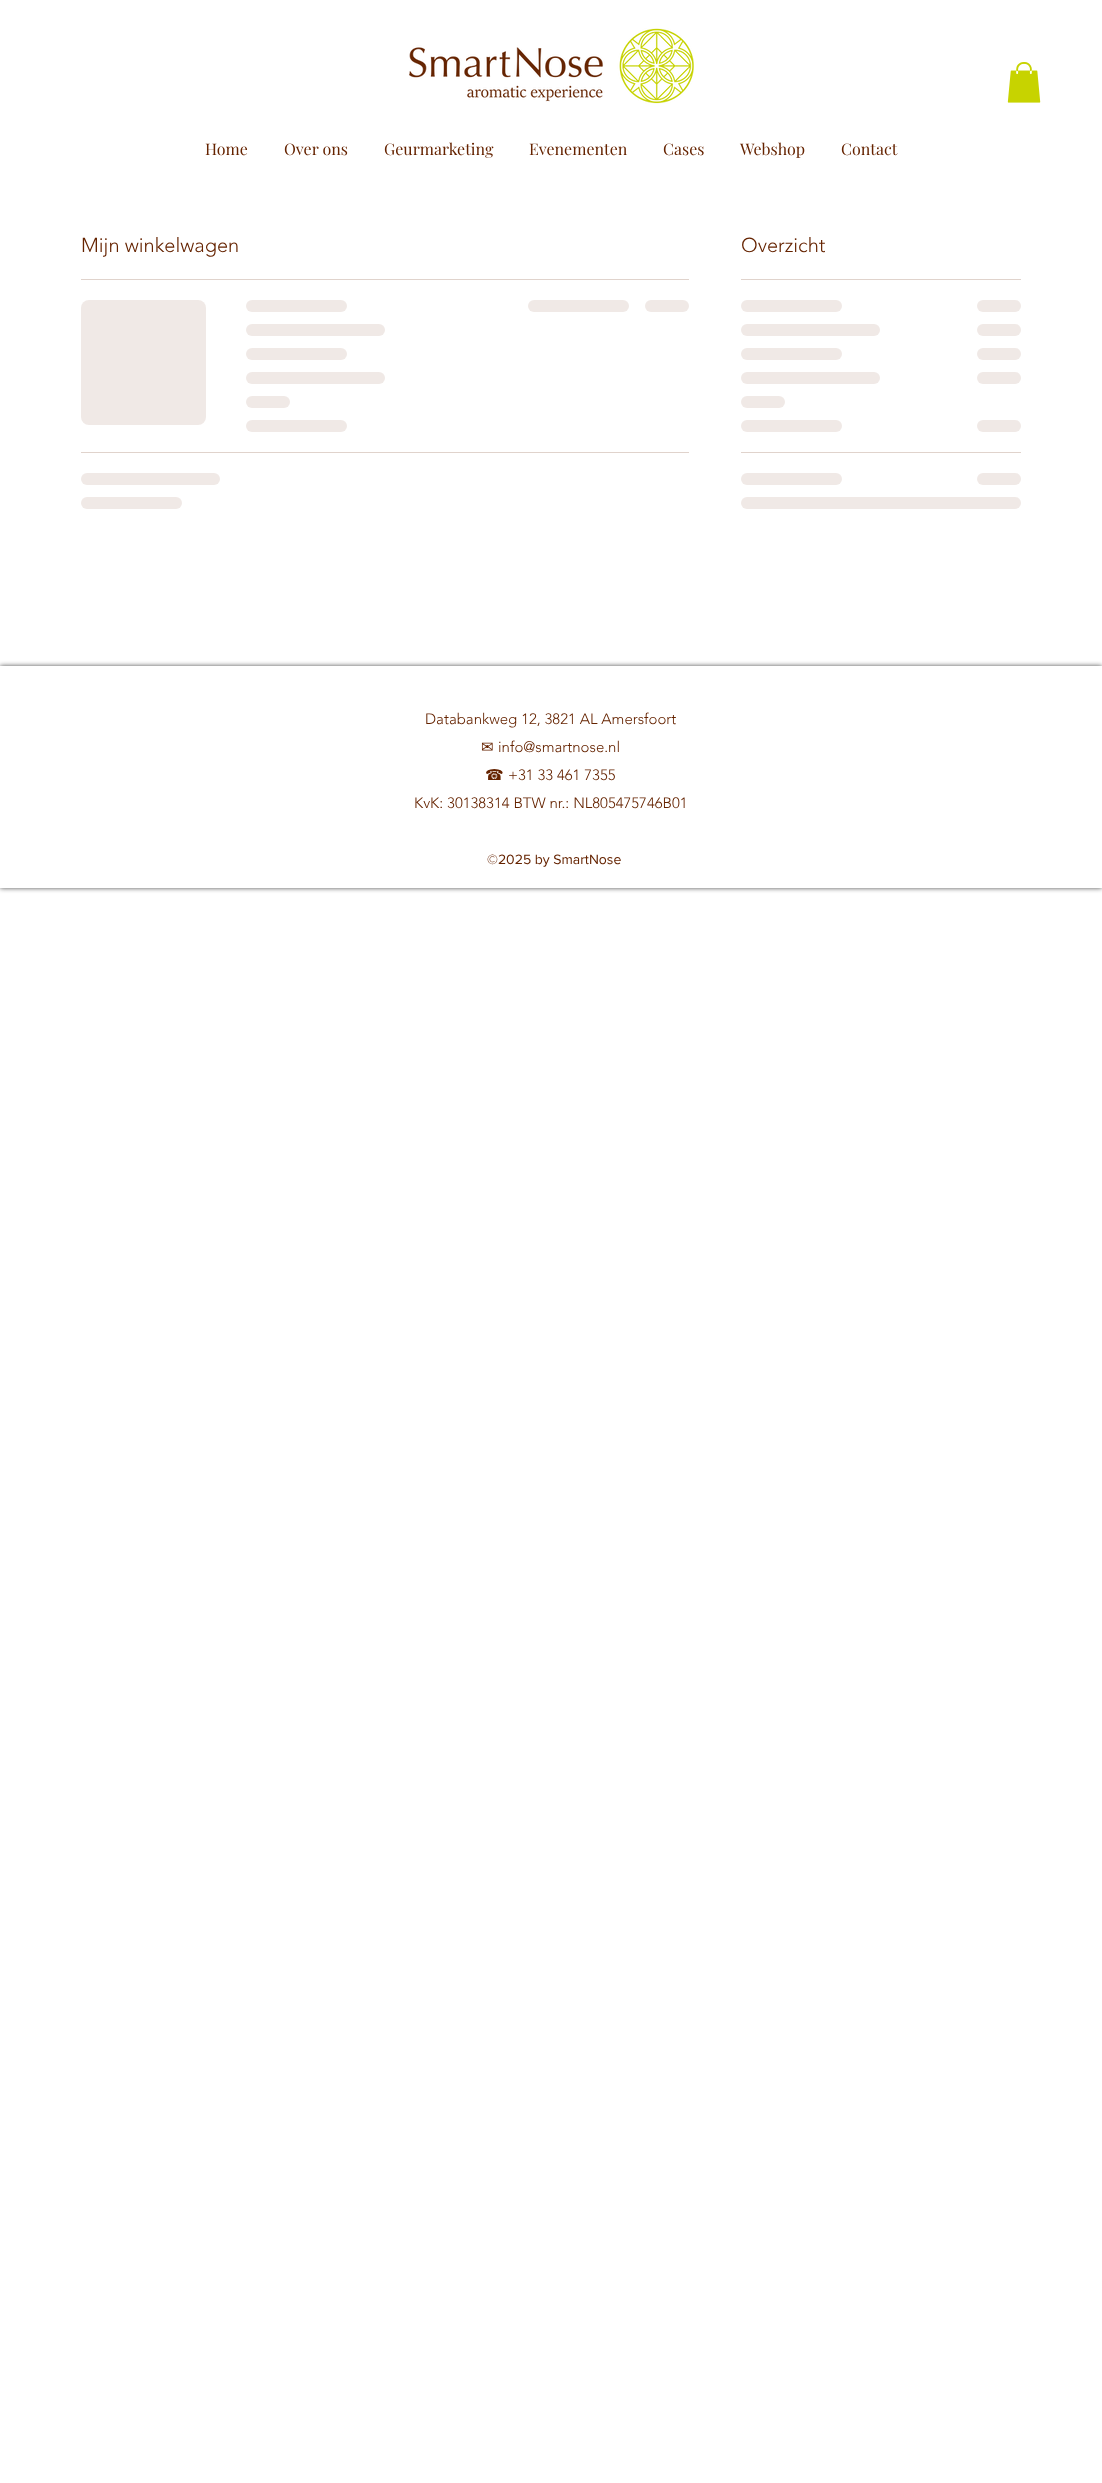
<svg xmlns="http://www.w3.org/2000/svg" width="1102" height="2483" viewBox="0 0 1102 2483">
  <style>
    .t1 { font: 16px Playfair Display; fill: #652300; }
    .t2 { font: 300 20px 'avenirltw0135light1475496'; fill: #652300; }
    .t3 { font: 300 15px 'avenirltw0135light1475496'; fill: #652300; }
    .t4 { font: 15px DejaVu Sans; fill: #652300; }
    .t5 { font: 14px 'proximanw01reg'; fill: #652300; }
  </style>
  <defs>
    <linearGradient id="g1" gradientUnits="userSpaceOnUse" x1="81" y1="363" x2="581" y2="363"><stop offset="0.25" stop-color="#f0e9e6"/><stop offset="0.37" stop-color="#e0d3cc"/><stop offset="0.63" stop-color="#f0e9e6"/></linearGradient>
    <linearGradient id="g2" gradientUnits="userSpaceOnUse" x1="246" y1="306" x2="650" y2="306"><stop offset="0.25" stop-color="#f0e9e6"/><stop offset="0.37" stop-color="#e0d3cc"/><stop offset="0.63" stop-color="#f0e9e6"/></linearGradient>
    <linearGradient id="g3" gradientUnits="userSpaceOnUse" x1="246" y1="330" x2="802" y2="330"><stop offset="0.25" stop-color="#f0e9e6"/><stop offset="0.37" stop-color="#e0d3cc"/><stop offset="0.63" stop-color="#f0e9e6"/></linearGradient>
    <linearGradient id="g4" gradientUnits="userSpaceOnUse" x1="246" y1="354" x2="650" y2="354"><stop offset="0.25" stop-color="#f0e9e6"/><stop offset="0.37" stop-color="#e0d3cc"/><stop offset="0.63" stop-color="#f0e9e6"/></linearGradient>
    <linearGradient id="g5" gradientUnits="userSpaceOnUse" x1="246" y1="378" x2="802" y2="378"><stop offset="0.25" stop-color="#f0e9e6"/><stop offset="0.37" stop-color="#e0d3cc"/><stop offset="0.63" stop-color="#f0e9e6"/></linearGradient>
    <linearGradient id="g6" gradientUnits="userSpaceOnUse" x1="246" y1="402" x2="422" y2="402"><stop offset="0.25" stop-color="#f0e9e6"/><stop offset="0.37" stop-color="#e0d3cc"/><stop offset="0.63" stop-color="#f0e9e6"/></linearGradient>
    <linearGradient id="g7" gradientUnits="userSpaceOnUse" x1="246" y1="426" x2="650" y2="426"><stop offset="0.25" stop-color="#f0e9e6"/><stop offset="0.37" stop-color="#e0d3cc"/><stop offset="0.63" stop-color="#f0e9e6"/></linearGradient>
    <linearGradient id="g8" gradientUnits="userSpaceOnUse" x1="528" y1="306" x2="932" y2="306"><stop offset="0.25" stop-color="#f0e9e6"/><stop offset="0.37" stop-color="#e0d3cc"/><stop offset="0.63" stop-color="#f0e9e6"/></linearGradient>
    <linearGradient id="g9" gradientUnits="userSpaceOnUse" x1="645" y1="306" x2="821" y2="306"><stop offset="0.25" stop-color="#f0e9e6"/><stop offset="0.37" stop-color="#e0d3cc"/><stop offset="0.63" stop-color="#f0e9e6"/></linearGradient>
    <linearGradient id="g10" gradientUnits="userSpaceOnUse" x1="81" y1="479" x2="637" y2="479"><stop offset="0.25" stop-color="#f0e9e6"/><stop offset="0.37" stop-color="#e0d3cc"/><stop offset="0.63" stop-color="#f0e9e6"/></linearGradient>
    <linearGradient id="g11" gradientUnits="userSpaceOnUse" x1="81" y1="503" x2="485" y2="503"><stop offset="0.25" stop-color="#f0e9e6"/><stop offset="0.37" stop-color="#e0d3cc"/><stop offset="0.63" stop-color="#f0e9e6"/></linearGradient>
    <linearGradient id="g12" gradientUnits="userSpaceOnUse" x1="741" y1="306" x2="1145" y2="306"><stop offset="0.25" stop-color="#f0e9e6"/><stop offset="0.37" stop-color="#e0d3cc"/><stop offset="0.63" stop-color="#f0e9e6"/></linearGradient>
    <linearGradient id="g13" gradientUnits="userSpaceOnUse" x1="977" y1="306" x2="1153" y2="306"><stop offset="0.25" stop-color="#f0e9e6"/><stop offset="0.37" stop-color="#e0d3cc"/><stop offset="0.63" stop-color="#f0e9e6"/></linearGradient>
    <linearGradient id="g14" gradientUnits="userSpaceOnUse" x1="741" y1="330" x2="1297" y2="330"><stop offset="0.25" stop-color="#f0e9e6"/><stop offset="0.37" stop-color="#e0d3cc"/><stop offset="0.63" stop-color="#f0e9e6"/></linearGradient>
    <linearGradient id="g15" gradientUnits="userSpaceOnUse" x1="977" y1="330" x2="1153" y2="330"><stop offset="0.25" stop-color="#f0e9e6"/><stop offset="0.37" stop-color="#e0d3cc"/><stop offset="0.63" stop-color="#f0e9e6"/></linearGradient>
    <linearGradient id="g16" gradientUnits="userSpaceOnUse" x1="741" y1="354" x2="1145" y2="354"><stop offset="0.25" stop-color="#f0e9e6"/><stop offset="0.37" stop-color="#e0d3cc"/><stop offset="0.63" stop-color="#f0e9e6"/></linearGradient>
    <linearGradient id="g17" gradientUnits="userSpaceOnUse" x1="977" y1="354" x2="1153" y2="354"><stop offset="0.25" stop-color="#f0e9e6"/><stop offset="0.37" stop-color="#e0d3cc"/><stop offset="0.63" stop-color="#f0e9e6"/></linearGradient>
    <linearGradient id="g18" gradientUnits="userSpaceOnUse" x1="741" y1="378" x2="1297" y2="378"><stop offset="0.25" stop-color="#f0e9e6"/><stop offset="0.37" stop-color="#e0d3cc"/><stop offset="0.63" stop-color="#f0e9e6"/></linearGradient>
    <linearGradient id="g19" gradientUnits="userSpaceOnUse" x1="977" y1="378" x2="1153" y2="378"><stop offset="0.25" stop-color="#f0e9e6"/><stop offset="0.37" stop-color="#e0d3cc"/><stop offset="0.63" stop-color="#f0e9e6"/></linearGradient>
    <linearGradient id="g20" gradientUnits="userSpaceOnUse" x1="741" y1="402" x2="917" y2="402"><stop offset="0.25" stop-color="#f0e9e6"/><stop offset="0.37" stop-color="#e0d3cc"/><stop offset="0.63" stop-color="#f0e9e6"/></linearGradient>
    <linearGradient id="g21" gradientUnits="userSpaceOnUse" x1="741" y1="426" x2="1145" y2="426"><stop offset="0.25" stop-color="#f0e9e6"/><stop offset="0.37" stop-color="#e0d3cc"/><stop offset="0.63" stop-color="#f0e9e6"/></linearGradient>
    <linearGradient id="g22" gradientUnits="userSpaceOnUse" x1="977" y1="426" x2="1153" y2="426"><stop offset="0.25" stop-color="#f0e9e6"/><stop offset="0.37" stop-color="#e0d3cc"/><stop offset="0.63" stop-color="#f0e9e6"/></linearGradient>
    <linearGradient id="g23" gradientUnits="userSpaceOnUse" x1="741" y1="479" x2="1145" y2="479"><stop offset="0.25" stop-color="#f0e9e6"/><stop offset="0.37" stop-color="#e0d3cc"/><stop offset="0.63" stop-color="#f0e9e6"/></linearGradient>
    <linearGradient id="g24" gradientUnits="userSpaceOnUse" x1="977" y1="479" x2="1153" y2="479"><stop offset="0.25" stop-color="#f0e9e6"/><stop offset="0.37" stop-color="#e0d3cc"/><stop offset="0.63" stop-color="#f0e9e6"/></linearGradient>
    <linearGradient id="g25" gradientUnits="userSpaceOnUse" x1="741" y1="503" x2="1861" y2="503"><stop offset="0.25" stop-color="#f0e9e6"/><stop offset="0.37" stop-color="#e0d3cc"/><stop offset="0.63" stop-color="#f0e9e6"/></linearGradient>
    <clipPath id="clip1"><path d="M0 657H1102V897H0ZM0 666H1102V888H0Z" clip-rule="evenodd"/></clipPath>
  </defs>
  <rect width="100%" height="100%" fill="#fff"/>
  <image x="409" y="28" width="285" height="76" href="images/1.png"/>
  <image x="1007" y="62" width="34" height="41" href="images/2.png"/>
  <text x="205" y="155" class="t1">Home</text>
  <text x="284" y="155" class="t1">Over ons</text>
  <text x="384" y="155" class="t1">Geurmarketing</text>
  <text x="529" y="155" class="t1">Evenementen</text>
  <text x="663" y="155" class="t1">Cases</text>
  <text x="740" y="155" class="t1">Webshop</text>
  <text x="841" y="155" class="t1">Contact</text>
  <rect x="81" y="279" width="608" height="1" fill="#e0d3cc"/>
  <text x="81" y="252" class="t2">Mijn winkelwagen</text>
  <rect x="81" y="300" width="125" height="125" rx="8" fill="url(#g1)"/>
  <rect x="246" y="300" width="101" height="12" rx="6" fill="url(#g2)"/>
  <rect x="246" y="324" width="139" height="12" rx="6" fill="url(#g3)"/>
  <rect x="246" y="348" width="101" height="12" rx="6" fill="url(#g4)"/>
  <rect x="246" y="372" width="139" height="12" rx="6" fill="url(#g5)"/>
  <rect x="246" y="396" width="44" height="12" rx="6" fill="url(#g6)"/>
  <rect x="246" y="420" width="101" height="12" rx="6" fill="url(#g7)"/>
  <rect x="528" y="300" width="101" height="12" rx="6" fill="url(#g8)"/>
  <rect x="645" y="300" width="44" height="12" rx="6" fill="url(#g9)"/>
  <rect x="81" y="452" width="608" height="1" fill="#e0d3cc"/>
  <rect x="81" y="473" width="139" height="12" rx="6" fill="url(#g10)"/>
  <rect x="81" y="497" width="101" height="12" rx="6" fill="url(#g11)"/>
  <rect x="741" y="279" width="280" height="1" fill="#e0d3cc"/>
  <text x="741" y="252" class="t2">Overzicht</text>
  <rect x="741" y="300" width="101" height="12" rx="6" fill="url(#g12)"/>
  <rect x="977" y="300" width="44" height="12" rx="6" fill="url(#g13)"/>
  <rect x="741" y="324" width="139" height="12" rx="6" fill="url(#g14)"/>
  <rect x="977" y="324" width="44" height="12" rx="6" fill="url(#g15)"/>
  <rect x="741" y="348" width="101" height="12" rx="6" fill="url(#g16)"/>
  <rect x="977" y="348" width="44" height="12" rx="6" fill="url(#g17)"/>
  <rect x="741" y="372" width="139" height="12" rx="6" fill="url(#g18)"/>
  <rect x="977" y="372" width="44" height="12" rx="6" fill="url(#g19)"/>
  <rect x="741" y="396" width="44" height="12" rx="6" fill="url(#g20)"/>
  <rect x="741" y="420" width="101" height="12" rx="6" fill="url(#g21)"/>
  <rect x="977" y="420" width="44" height="12" rx="6" fill="url(#g22)"/>
  <rect x="741" y="452" width="280" height="1" fill="#e0d3cc"/>
  <rect x="741" y="473" width="101" height="12" rx="6" fill="url(#g23)"/>
  <rect x="977" y="473" width="44" height="12" rx="6" fill="url(#g24)"/>
  <rect x="741" y="497" width="280" height="12" rx="6" fill="url(#g25)"/>
  <g clip-path="url(#clip1)">
    <rect x="0" y="666" width="1102" height="222" fill="#000000b3" filter="blur(2.5px)"/>
  </g>
  <text x="425" y="724" class="t3">Databankweg 12, 3821 AL Amersfoort</text>
  <text x="481" y="752" class="t4">✉</text>
  <text x="498" y="752" class="t3">info@smartnose.nl</text>
  <text x="485" y="780" class="t4">☎</text>
  <text x="508" y="780" class="t3">+31 33 461 7355</text>
  <text x="414" y="808" class="t3">KvK: 30138314 BTW nr.: NL805475746B01</text>
  <text x="487" y="864" class="t5">©2025 by SmartNose</text>
</svg>
